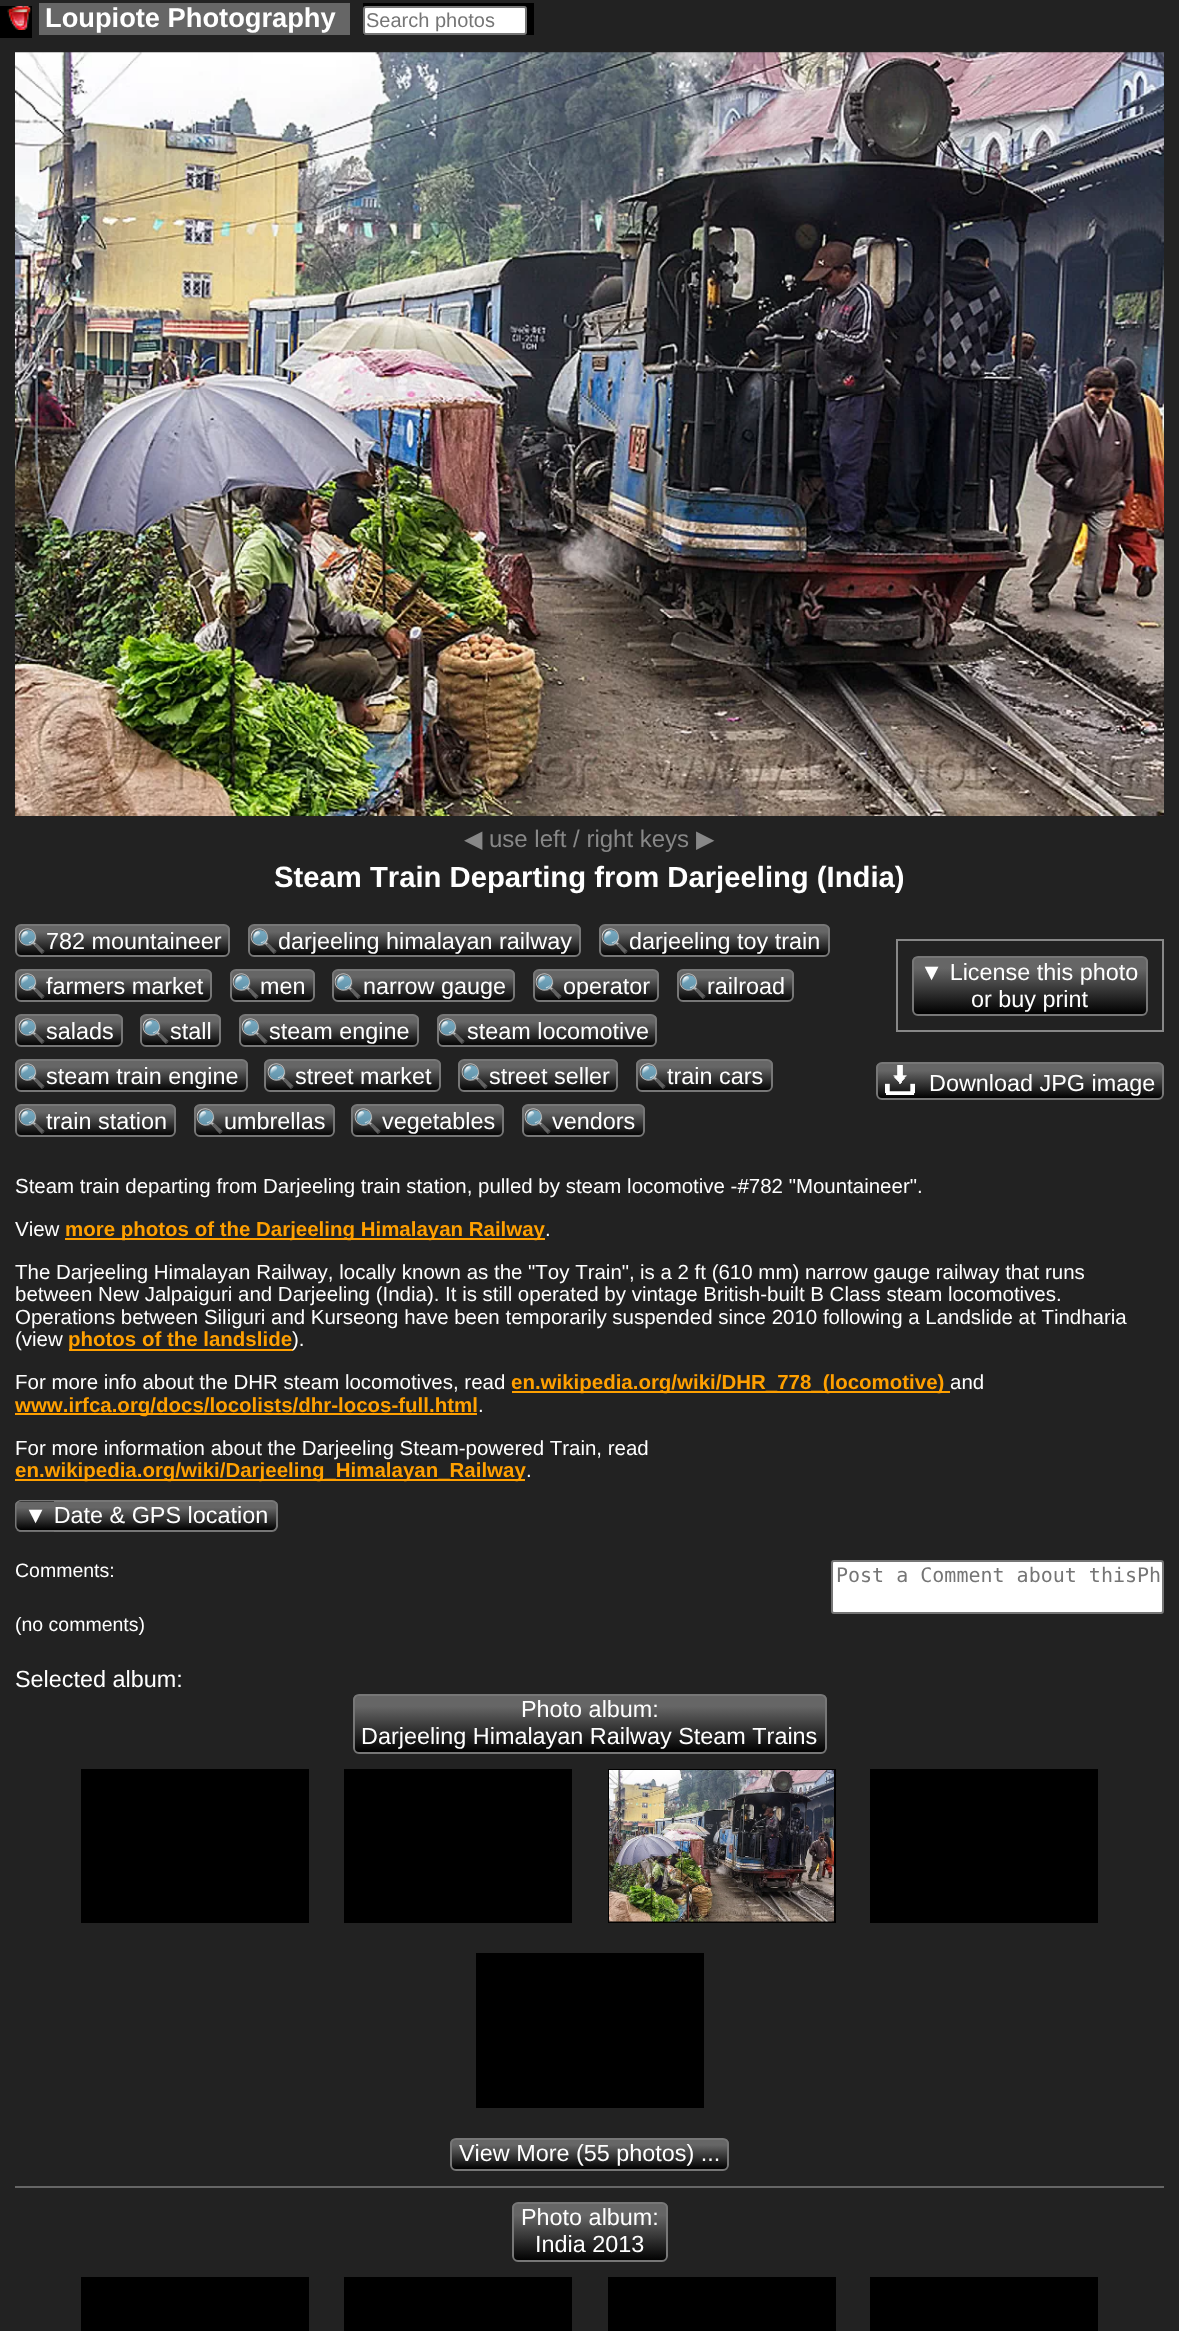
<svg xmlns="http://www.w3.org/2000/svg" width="1179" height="2331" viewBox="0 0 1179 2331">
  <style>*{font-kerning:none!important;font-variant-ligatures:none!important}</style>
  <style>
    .t1 { font: bold 27.25px Liberation Sans; fill: #fff; }
    .t2 { font: 20px Liberation Sans; fill: #757575; }
    .t3 { font: 24px DejaVu Sans; fill: #888; }
    .t4 { font: 24px Liberation Sans; fill: #888; }
    .t5 { font: bold 29.25px Liberation Sans; fill: #fff; }
    .t6 { font: 23.4px Noto Color Emoji; fill: #fff; }
    .t7 { font: 23.4px Liberation Sans; fill: #fff; }
    .t8 { font: 20.48px Liberation Sans; fill: #fff; }
    .t9 { font: bold 20.48px Liberation Sans; fill: #ffa000; }
    .t10 { font: 19.5px Liberation Sans; fill: #fff; }
    .t11 { font: 20px DejaVu Sans Mono; fill: #757575; }
  </style>
  <defs>
    <clipPath id="clip1"><rect x="15" y="924" width="215" height="33" rx="6"/></clipPath>
    <linearGradient id="g1" gradientUnits="userSpaceOnUse" x1="122" y1="926" x2="122" y2="956"><stop offset="0" stop-color="#666"/><stop offset="0.2" stop-color="#666"/><stop offset="1" stop-color="#000"/></linearGradient>
    <clipPath id="clip2"><rect x="248" y="924" width="333" height="33" rx="6"/></clipPath>
    <linearGradient id="g2" gradientUnits="userSpaceOnUse" x1="414" y1="926" x2="414" y2="956"><stop offset="0" stop-color="#666"/><stop offset="0.2" stop-color="#666"/><stop offset="1" stop-color="#000"/></linearGradient>
    <clipPath id="clip3"><rect x="599" y="924" width="231" height="33" rx="6"/></clipPath>
    <linearGradient id="g3" gradientUnits="userSpaceOnUse" x1="714" y1="926" x2="714" y2="956"><stop offset="0" stop-color="#666"/><stop offset="0.2" stop-color="#666"/><stop offset="1" stop-color="#000"/></linearGradient>
    <clipPath id="clip4"><rect x="15" y="969" width="197" height="33" rx="6"/></clipPath>
    <linearGradient id="g4" gradientUnits="userSpaceOnUse" x1="113" y1="971" x2="113" y2="1001"><stop offset="0" stop-color="#666"/><stop offset="0.2" stop-color="#666"/><stop offset="1" stop-color="#000"/></linearGradient>
    <clipPath id="clip5"><rect x="230" y="969" width="85" height="33" rx="6"/></clipPath>
    <linearGradient id="g5" gradientUnits="userSpaceOnUse" x1="272" y1="971" x2="272" y2="1001"><stop offset="0" stop-color="#666"/><stop offset="0.2" stop-color="#666"/><stop offset="1" stop-color="#000"/></linearGradient>
    <clipPath id="clip6"><rect x="332" y="969" width="183" height="33" rx="6"/></clipPath>
    <linearGradient id="g6" gradientUnits="userSpaceOnUse" x1="423" y1="971" x2="423" y2="1001"><stop offset="0" stop-color="#666"/><stop offset="0.2" stop-color="#666"/><stop offset="1" stop-color="#000"/></linearGradient>
    <clipPath id="clip7"><rect x="533" y="969" width="126" height="33" rx="6"/></clipPath>
    <linearGradient id="g7" gradientUnits="userSpaceOnUse" x1="596" y1="971" x2="596" y2="1001"><stop offset="0" stop-color="#666"/><stop offset="0.2" stop-color="#666"/><stop offset="1" stop-color="#000"/></linearGradient>
    <clipPath id="clip8"><rect x="677" y="969" width="117" height="33" rx="6"/></clipPath>
    <linearGradient id="g8" gradientUnits="userSpaceOnUse" x1="735" y1="971" x2="735" y2="1001"><stop offset="0" stop-color="#666"/><stop offset="0.2" stop-color="#666"/><stop offset="1" stop-color="#000"/></linearGradient>
    <clipPath id="clip9"><rect x="15" y="1014" width="108" height="33" rx="6"/></clipPath>
    <linearGradient id="g9" gradientUnits="userSpaceOnUse" x1="69" y1="1016" x2="69" y2="1046"><stop offset="0" stop-color="#666"/><stop offset="0.2" stop-color="#666"/><stop offset="1" stop-color="#000"/></linearGradient>
    <clipPath id="clip10"><rect x="140" y="1014" width="81" height="33" rx="6"/></clipPath>
    <linearGradient id="g10" gradientUnits="userSpaceOnUse" x1="180" y1="1016" x2="180" y2="1046"><stop offset="0" stop-color="#666"/><stop offset="0.2" stop-color="#666"/><stop offset="1" stop-color="#000"/></linearGradient>
    <clipPath id="clip11"><rect x="239" y="1014" width="180" height="33" rx="6"/></clipPath>
    <linearGradient id="g11" gradientUnits="userSpaceOnUse" x1="329" y1="1016" x2="329" y2="1046"><stop offset="0" stop-color="#666"/><stop offset="0.2" stop-color="#666"/><stop offset="1" stop-color="#000"/></linearGradient>
    <clipPath id="clip12"><rect x="437" y="1014" width="220" height="33" rx="6"/></clipPath>
    <linearGradient id="g12" gradientUnits="userSpaceOnUse" x1="547" y1="1016" x2="547" y2="1046"><stop offset="0" stop-color="#666"/><stop offset="0.2" stop-color="#666"/><stop offset="1" stop-color="#000"/></linearGradient>
    <clipPath id="clip13"><rect x="15" y="1059" width="233" height="33" rx="6"/></clipPath>
    <linearGradient id="g13" gradientUnits="userSpaceOnUse" x1="131" y1="1061" x2="131" y2="1091"><stop offset="0" stop-color="#666"/><stop offset="0.2" stop-color="#666"/><stop offset="1" stop-color="#000"/></linearGradient>
    <clipPath id="clip14"><rect x="264" y="1059" width="177" height="33" rx="6"/></clipPath>
    <linearGradient id="g14" gradientUnits="userSpaceOnUse" x1="353" y1="1061" x2="353" y2="1091"><stop offset="0" stop-color="#666"/><stop offset="0.2" stop-color="#666"/><stop offset="1" stop-color="#000"/></linearGradient>
    <clipPath id="clip15"><rect x="458" y="1059" width="160" height="33" rx="6"/></clipPath>
    <linearGradient id="g15" gradientUnits="userSpaceOnUse" x1="538" y1="1061" x2="538" y2="1091"><stop offset="0" stop-color="#666"/><stop offset="0.2" stop-color="#666"/><stop offset="1" stop-color="#000"/></linearGradient>
    <clipPath id="clip16"><rect x="636" y="1059" width="137" height="33" rx="6"/></clipPath>
    <linearGradient id="g16" gradientUnits="userSpaceOnUse" x1="704" y1="1061" x2="704" y2="1091"><stop offset="0" stop-color="#666"/><stop offset="0.2" stop-color="#666"/><stop offset="1" stop-color="#000"/></linearGradient>
    <clipPath id="clip17"><rect x="15" y="1104" width="161" height="33" rx="6"/></clipPath>
    <linearGradient id="g17" gradientUnits="userSpaceOnUse" x1="95" y1="1106" x2="95" y2="1136"><stop offset="0" stop-color="#666"/><stop offset="0.2" stop-color="#666"/><stop offset="1" stop-color="#000"/></linearGradient>
    <clipPath id="clip18"><rect x="194" y="1104" width="141" height="33" rx="6"/></clipPath>
    <linearGradient id="g18" gradientUnits="userSpaceOnUse" x1="264" y1="1106" x2="264" y2="1136"><stop offset="0" stop-color="#666"/><stop offset="0.2" stop-color="#666"/><stop offset="1" stop-color="#000"/></linearGradient>
    <clipPath id="clip19"><rect x="351" y="1104" width="153" height="33" rx="6"/></clipPath>
    <linearGradient id="g19" gradientUnits="userSpaceOnUse" x1="428" y1="1106" x2="428" y2="1136"><stop offset="0" stop-color="#666"/><stop offset="0.2" stop-color="#666"/><stop offset="1" stop-color="#000"/></linearGradient>
    <clipPath id="clip20"><rect x="522" y="1104" width="123" height="33" rx="6"/></clipPath>
    <linearGradient id="g20" gradientUnits="userSpaceOnUse" x1="584" y1="1106" x2="584" y2="1136"><stop offset="0" stop-color="#666"/><stop offset="0.2" stop-color="#666"/><stop offset="1" stop-color="#000"/></linearGradient>
    <clipPath id="clip21"><rect x="912" y="956" width="236" height="60" rx="6"/></clipPath>
    <linearGradient id="g21" gradientUnits="userSpaceOnUse" x1="1030" y1="957" x2="1030" y2="1014"><stop offset="0" stop-color="#666"/><stop offset="0.2" stop-color="#666"/><stop offset="1" stop-color="#000"/></linearGradient>
    <clipPath id="clip22"><rect x="876" y="1062" width="288" height="38" rx="6"/></clipPath>
    <linearGradient id="g22" gradientUnits="userSpaceOnUse" x1="1020" y1="1064" x2="1020" y2="1098"><stop offset="0" stop-color="#666"/><stop offset="0.2" stop-color="#666"/><stop offset="1" stop-color="#000"/></linearGradient>
    <clipPath id="clip23"><path d="M21 1500H54V1532H21C17.5 1532 15 1529.5 15 1526V1506C15 1502.5 17.5 1500 21 1500Z"/></clipPath>
    <linearGradient id="g23" gradientUnits="userSpaceOnUse" x1="35" y1="1502" x2="35" y2="1530"><stop offset="0" stop-color="#666"/><stop offset="0.2" stop-color="#666"/><stop offset="1" stop-color="#000"/></linearGradient>
    <linearGradient id="g24" gradientUnits="userSpaceOnUse" x1="35" y1="1473" x2="35" y2="1502"><stop offset="0" stop-color="#666"/><stop offset="0.2" stop-color="#666"/><stop offset="1" stop-color="#000"/></linearGradient>
    <linearGradient id="g25" gradientUnits="userSpaceOnUse" x1="35" y1="1530" x2="35" y2="1559"><stop offset="0" stop-color="#666"/><stop offset="0.2" stop-color="#666"/><stop offset="1" stop-color="#000"/></linearGradient>
    <clipPath id="clip24"><path d="M54 1500H272C275.5 1500 278 1502.5 278 1506V1526C278 1529.5 275.5 1532 272 1532H54Z"/></clipPath>
    <linearGradient id="g26" gradientUnits="userSpaceOnUse" x1="165" y1="1502" x2="165" y2="1530"><stop offset="0" stop-color="#666"/><stop offset="0.2" stop-color="#666"/><stop offset="1" stop-color="#000"/></linearGradient>
    <clipPath id="clip25"><rect x="353" y="1694" width="474" height="60" rx="6"/></clipPath>
    <linearGradient id="g27" gradientUnits="userSpaceOnUse" x1="590" y1="1695" x2="590" y2="1752"><stop offset="0" stop-color="#666"/><stop offset="0.2" stop-color="#666"/><stop offset="1" stop-color="#000"/></linearGradient>
    <clipPath id="clip26"><rect x="450" y="2138" width="279" height="33" rx="6"/></clipPath>
    <linearGradient id="g28" gradientUnits="userSpaceOnUse" x1="590" y1="2139" x2="590" y2="2169"><stop offset="0" stop-color="#666"/><stop offset="0.2" stop-color="#666"/><stop offset="1" stop-color="#000"/></linearGradient>
    <clipPath id="clip27"><rect x="512" y="2202" width="156" height="60" rx="6"/></clipPath>
    <linearGradient id="g29" gradientUnits="userSpaceOnUse" x1="590" y1="2204" x2="590" y2="2261"><stop offset="0" stop-color="#666"/><stop offset="0.2" stop-color="#666"/><stop offset="1" stop-color="#000"/></linearGradient>
  </defs>
  <rect width="100%" height="100%" fill="#222"/>
  <rect x="0" y="6" width="32" height="32" fill="#000"/>
  <image x="7" y="6" width="25" height="24" href="images/1.png"/>
  <rect x="39" y="3" width="311" height="32" fill="#666"/>
  <text x="45" y="27" class="t1">Loupiote Photography</text>
  <rect x="363" y="3" width="171" height="32" fill="#000"/>
  <rect x="364" y="7" width="162" height="27" rx="2" fill="#fff" stroke="#767676" stroke-width="2"/>
  <text x="366" y="27" class="t2">Search photos</text>
  <image x="15" y="52" width="1149" height="1" href="images/2.png"/>
  <image x="15" y="52" width="1149" height="764" href="images/3.png"/>
  <text x="464" y="847" class="t3">◀</text>
  <text x="489" y="847" class="t4">use left / right keys</text>
  <text x="696" y="847" class="t3">▶</text>
  <text x="274" y="887" class="t5">Steam Train Departing from Darjeeling (India)</text>
  <g clip-path="url(#clip1)">
    <rect x="15" y="926" width="215" height="30" fill="url(#g1)"/>
  </g>
  <rect x="16" y="925" width="213" height="31" rx="5" fill="none" stroke="#777" stroke-width="2"/>
  <text x="17" y="949" class="t6">🔍</text>
  <text x="46" y="949" class="t7">782 mountaineer</text>
  <g clip-path="url(#clip2)">
    <rect x="248" y="926" width="333" height="30" fill="url(#g2)"/>
  </g>
  <rect x="249" y="925" width="331" height="31" rx="5" fill="none" stroke="#777" stroke-width="2"/>
  <text x="249" y="949" class="t6">🔍</text>
  <text x="278" y="949" class="t7">darjeeling himalayan railway</text>
  <g clip-path="url(#clip3)">
    <rect x="599" y="926" width="231" height="30" fill="url(#g3)"/>
  </g>
  <rect x="600" y="925" width="229" height="31" rx="5" fill="none" stroke="#777" stroke-width="2"/>
  <text x="600" y="949" class="t6">🔍</text>
  <text x="629" y="949" class="t7">darjeeling toy train</text>
  <g clip-path="url(#clip4)">
    <rect x="15" y="971" width="197" height="30" fill="url(#g4)"/>
  </g>
  <rect x="16" y="970" width="195" height="31" rx="5" fill="none" stroke="#777" stroke-width="2"/>
  <text x="17" y="994" class="t6">🔍</text>
  <text x="46" y="994" class="t7">farmers market</text>
  <g clip-path="url(#clip5)">
    <rect x="230" y="971" width="85" height="30" fill="url(#g5)"/>
  </g>
  <rect x="231" y="970" width="83" height="31" rx="5" fill="none" stroke="#777" stroke-width="2"/>
  <text x="231" y="994" class="t6">🔍</text>
  <text x="260" y="994" class="t7">men</text>
  <g clip-path="url(#clip6)">
    <rect x="332" y="971" width="183" height="30" fill="url(#g6)"/>
  </g>
  <rect x="333" y="970" width="181" height="31" rx="5" fill="none" stroke="#777" stroke-width="2"/>
  <text x="333" y="994" class="t6">🔍</text>
  <text x="363" y="994" class="t7">narrow gauge</text>
  <g clip-path="url(#clip7)">
    <rect x="533" y="971" width="126" height="30" fill="url(#g7)"/>
  </g>
  <rect x="534" y="970" width="124" height="31" rx="5" fill="none" stroke="#777" stroke-width="2"/>
  <text x="534" y="994" class="t6">🔍</text>
  <text x="563" y="994" class="t7">operator</text>
  <g clip-path="url(#clip8)">
    <rect x="677" y="971" width="117" height="30" fill="url(#g8)"/>
  </g>
  <rect x="678" y="970" width="115" height="31" rx="5" fill="none" stroke="#777" stroke-width="2"/>
  <text x="678" y="994" class="t6">🔍</text>
  <text x="707" y="994" class="t7">railroad</text>
  <g clip-path="url(#clip9)">
    <rect x="15" y="1016" width="108" height="30" fill="url(#g9)"/>
  </g>
  <rect x="16" y="1015" width="106" height="31" rx="5" fill="none" stroke="#777" stroke-width="2"/>
  <text x="17" y="1039" class="t6">🔍</text>
  <text x="46" y="1039" class="t7">salads</text>
  <g clip-path="url(#clip10)">
    <rect x="140" y="1016" width="81" height="30" fill="url(#g10)"/>
  </g>
  <rect x="141" y="1015" width="79" height="31" rx="5" fill="none" stroke="#777" stroke-width="2"/>
  <text x="141" y="1039" class="t6">🔍</text>
  <text x="170" y="1039" class="t7">stall</text>
  <g clip-path="url(#clip11)">
    <rect x="239" y="1016" width="180" height="30" fill="url(#g11)"/>
  </g>
  <rect x="240" y="1015" width="178" height="31" rx="5" fill="none" stroke="#777" stroke-width="2"/>
  <text x="240" y="1039" class="t6">🔍</text>
  <text x="269" y="1039" class="t7">steam engine</text>
  <g clip-path="url(#clip12)">
    <rect x="437" y="1016" width="220" height="30" fill="url(#g12)"/>
  </g>
  <rect x="438" y="1015" width="218" height="31" rx="5" fill="none" stroke="#777" stroke-width="2"/>
  <text x="437" y="1039" class="t6">🔍</text>
  <text x="467" y="1039" class="t7">steam locomotive</text>
  <g clip-path="url(#clip13)">
    <rect x="15" y="1061" width="233" height="30" fill="url(#g13)"/>
  </g>
  <rect x="16" y="1060" width="231" height="31" rx="5" fill="none" stroke="#777" stroke-width="2"/>
  <text x="17" y="1084" class="t6">🔍</text>
  <text x="46" y="1084" class="t7">steam train engine</text>
  <g clip-path="url(#clip14)">
    <rect x="264" y="1061" width="177" height="30" fill="url(#g14)"/>
  </g>
  <rect x="265" y="1060" width="175" height="31" rx="5" fill="none" stroke="#777" stroke-width="2"/>
  <text x="266" y="1084" class="t6">🔍</text>
  <text x="295" y="1084" class="t7">street market</text>
  <g clip-path="url(#clip15)">
    <rect x="458" y="1061" width="160" height="30" fill="url(#g15)"/>
  </g>
  <rect x="459" y="1060" width="158" height="31" rx="5" fill="none" stroke="#777" stroke-width="2"/>
  <text x="460" y="1084" class="t6">🔍</text>
  <text x="489" y="1084" class="t7">street seller</text>
  <g clip-path="url(#clip16)">
    <rect x="636" y="1061" width="137" height="30" fill="url(#g16)"/>
  </g>
  <rect x="637" y="1060" width="135" height="31" rx="5" fill="none" stroke="#777" stroke-width="2"/>
  <text x="638" y="1084" class="t6">🔍</text>
  <text x="667" y="1084" class="t7">train cars</text>
  <g clip-path="url(#clip17)">
    <rect x="15" y="1106" width="161" height="30" fill="url(#g17)"/>
  </g>
  <rect x="16" y="1105" width="159" height="31" rx="5" fill="none" stroke="#777" stroke-width="2"/>
  <text x="17" y="1129" class="t6">🔍</text>
  <text x="46" y="1129" class="t7">train station</text>
  <g clip-path="url(#clip18)">
    <rect x="194" y="1106" width="141" height="30" fill="url(#g18)"/>
  </g>
  <rect x="195" y="1105" width="139" height="31" rx="5" fill="none" stroke="#777" stroke-width="2"/>
  <text x="195" y="1129" class="t6">🔍</text>
  <text x="224" y="1129" class="t7">umbrellas</text>
  <g clip-path="url(#clip19)">
    <rect x="351" y="1106" width="153" height="30" fill="url(#g19)"/>
  </g>
  <rect x="352" y="1105" width="151" height="31" rx="5" fill="none" stroke="#777" stroke-width="2"/>
  <text x="353" y="1129" class="t6">🔍</text>
  <text x="382" y="1129" class="t7">vegetables</text>
  <g clip-path="url(#clip20)">
    <rect x="522" y="1106" width="123" height="30" fill="url(#g20)"/>
  </g>
  <rect x="523" y="1105" width="121" height="31" rx="5" fill="none" stroke="#777" stroke-width="2"/>
  <text x="523" y="1129" class="t6">🔍</text>
  <text x="552" y="1129" class="t7">vendors</text>
  <rect x="897" y="940" width="266" height="91" fill="none" stroke="#888" stroke-width="2"/>
  <g clip-path="url(#clip21)">
    <rect x="912" y="957" width="236" height="57" fill="url(#g21)"/>
  </g>
  <rect x="913" y="957" width="234" height="58" rx="5" fill="none" stroke="#777" stroke-width="2"/>
  <text x="920" y="980" class="t7">▼ License this photo</text>
  <text x="971" y="1007" class="t7">or buy print</text>
  <g clip-path="url(#clip22)">
    <rect x="876" y="1064" width="288" height="34" fill="url(#g22)"/>
  </g>
  <rect x="877" y="1063" width="286" height="36" rx="5" fill="none" stroke="#777" stroke-width="2"/>
  <image x="885" y="1065" width="30" height="30" href="images/4.png"/>
  <text x="929" y="1091" class="t7">Download JPG image</text>
  <text x="15" y="1193" class="t8">Steam train departing from Darjeeling train station, pulled by steam locomotive -#782 "Mountaineer".</text>
  <text x="15" y="1236" class="t8">View</text>
  <rect x="65" y="1238" width="480" height="2" fill="#ffa000"/>
  <text x="65" y="1236" class="t9">more photos of the Darjeeling Himalayan Railway</text>
  <text x="545" y="1236" class="t8">.</text>
  <text x="15" y="1279" class="t8">The Darjeeling Himalayan Railway, locally known as the "Toy Train",</text>
  <text x="640" y="1279" class="t8">is a 2 ft (610 mm) narrow gauge railway that runs</text>
  <text x="15" y="1301" class="t8">between New Jalpaiguri and Darjeeling (India). It is still operated by vintage British-built B Class steam locomotives.</text>
  <text x="15" y="1324" class="t8">Operations between Siliguri and Kurseong have been temporarily suspended since 2010 following a Landslide at Tindharia</text>
  <text x="15" y="1346" class="t8">(view</text>
  <rect x="69" y="1349" width="224" height="2" fill="#ffa000"/>
  <text x="68" y="1346" class="t9">photos of the landslide</text>
  <text x="292" y="1346" class="t8">).</text>
  <text x="15" y="1389" class="t8">For more info about the DHR steam locomotives, read</text>
  <rect x="512" y="1391" width="438" height="2" fill="#ffa000"/>
  <text x="511" y="1389" class="t9">en.wikipedia.org/wiki/DHR_778_(locomotive)</text>
  <text x="950" y="1389" class="t8">and</text>
  <rect x="15" y="1413" width="462" height="2" fill="#ffa000"/>
  <text x="15" y="1412" class="t9">www.irfca.org/docs/locolists/dhr-locos-full.html</text>
  <text x="478" y="1412" class="t8">.</text>
  <text x="15" y="1455" class="t8">For more information about the Darjeeling Steam-powered Train, read</text>
  <rect x="15" y="1479" width="510" height="2" fill="#ffa000"/>
  <text x="15" y="1477" class="t9">en.wikipedia.org/wiki/Darjeeling_Himalayan_Railway</text>
  <text x="526" y="1477" class="t8">.</text>
  <g clip-path="url(#clip23)">
    <rect x="15" y="1502" width="39" height="28" fill="url(#g23)"/>
    <rect x="15" y="1500" width="39" height="2" fill="url(#g24)"/>
    <rect x="15" y="1530" width="39" height="2" fill="url(#g25)"/>
  </g>
  <path d="M21 1500H54V1531.5H21C17.5 1531.5 15 1529 15 1525.5V1506C15 1502.5 17.5 1500 21 1500ZM21 1501.5H54V1530H21C18.5 1530 16.5 1528 16.5 1525.5V1506C16.5 1503.5 18.5 1501.5 21 1501.5Z" fill="#777" fill-rule="evenodd"/>
  <g clip-path="url(#clip24)">
    <rect x="54" y="1502" width="224" height="28" fill="url(#g26)"/>
  </g>
  <path d="M54 1500H272C275 1500 278 1503 278 1506V1526C278 1529 275 1532 272 1532H54ZM54 1502H272C274 1502 276 1503 276 1506V1526C276 1528 274 1530 272 1530H54Z" fill="#777" fill-rule="evenodd"/>
  <text x="24" y="1523" class="t7">▼ Date &amp; GPS location</text>
  <text x="15" y="1577" class="t10">Comments:</text>
  <rect x="832" y="1561" width="331" height="52" rx="2" fill="#fff" stroke="#767676" stroke-width="2"/>
  <text x="836" y="1582" class="t11">Post a Comment about thisPh</text>
  <text x="15" y="1631" class="t10">(no comments)</text>
  <text x="15" y="1687" class="t7">Selected album:</text>
  <g clip-path="url(#clip25)">
    <rect x="353" y="1695" width="474" height="57" fill="url(#g27)"/>
  </g>
  <rect x="354" y="1695" width="472" height="58" rx="5" fill="none" stroke="#777" stroke-width="2"/>
  <text x="521" y="1717" class="t7">Photo album:</text>
  <text x="361" y="1744" class="t7">Darjeeling Himalayan Railway Steam Trains</text>
  <rect x="82" y="1770" width="226" height="152" fill="none" stroke="#000" stroke-width="2"/>
  <rect x="83" y="1771" width="224" height="150" fill="#000"/>
  <rect x="345" y="1770" width="226" height="152" fill="none" stroke="#000" stroke-width="2"/>
  <rect x="346" y="1771" width="224" height="150" fill="#000"/>
  <rect x="609" y="1770" width="226" height="152" fill="none" stroke="#000" stroke-width="2"/>
  <image x="609" y="1770" width="225" height="152" href="images/5.png"/>
  <rect x="871" y="1770" width="226" height="152" fill="none" stroke="#000" stroke-width="2"/>
  <rect x="872" y="1771" width="224" height="150" fill="#000"/>
  <rect x="477" y="1954" width="226" height="153" fill="none" stroke="#000" stroke-width="2"/>
  <rect x="478" y="1955" width="224" height="151" fill="#000"/>
  <g clip-path="url(#clip26)">
    <rect x="450" y="2139" width="279" height="30" fill="url(#g28)"/>
  </g>
  <rect x="451" y="2139" width="277" height="31" rx="5" fill="none" stroke="#777" stroke-width="2"/>
  <text x="459" y="2161" class="t7">View More (55 photos) ...</text>
  <rect x="15" y="2186" width="1149" height="2" fill="#666"/>
  <g clip-path="url(#clip27)">
    <rect x="512" y="2204" width="156" height="57" fill="url(#g29)"/>
  </g>
  <rect x="513" y="2203" width="154" height="58" rx="5" fill="none" stroke="#777" stroke-width="2"/>
  <text x="521" y="2225" class="t7">Photo album:</text>
  <text x="535" y="2252" class="t7">India 2013</text>
  <rect x="82" y="2278" width="226" height="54" fill="none" stroke="#000" stroke-width="2"/>
  <rect x="83" y="2279" width="224" height="52" fill="#000"/>
  <rect x="345" y="2278" width="226" height="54" fill="none" stroke="#000" stroke-width="2"/>
  <rect x="346" y="2279" width="224" height="52" fill="#000"/>
  <rect x="609" y="2278" width="226" height="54" fill="none" stroke="#000" stroke-width="2"/>
  <rect x="610" y="2279" width="224" height="52" fill="#000"/>
  <rect x="871" y="2278" width="226" height="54" fill="none" stroke="#000" stroke-width="2"/>
  <rect x="872" y="2279" width="224" height="52" fill="#000"/>
</svg>
